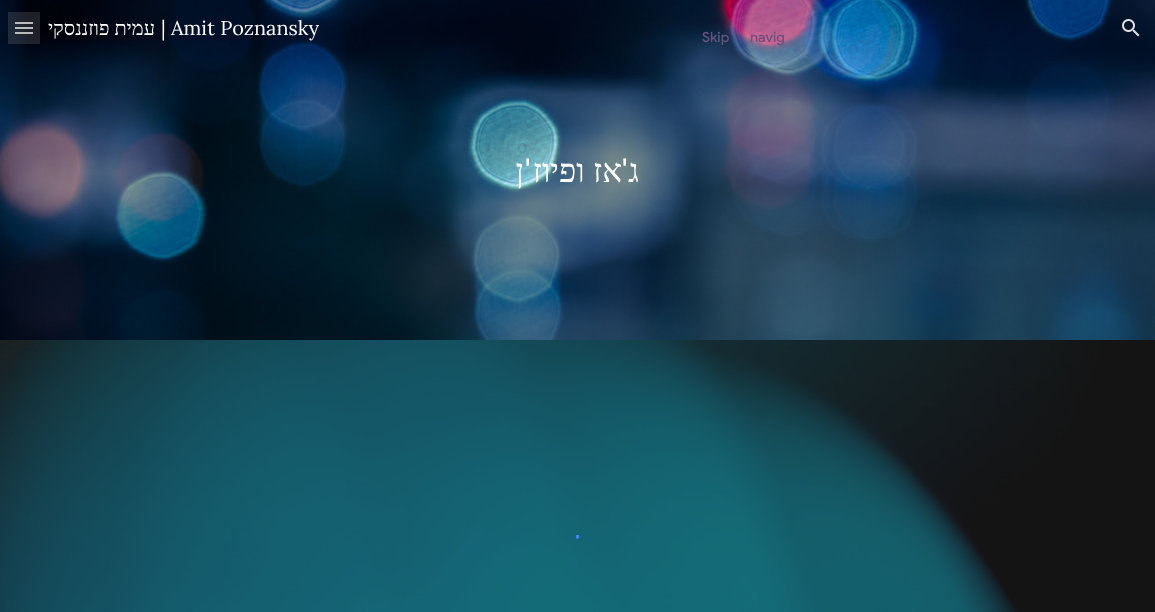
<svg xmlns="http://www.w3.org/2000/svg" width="1155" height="612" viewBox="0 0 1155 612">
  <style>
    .t1 { font: 20px Liberation Serif; direction: rtl; fill: #fff; }
    .t2 { font: 20px Lora; fill: #fff; }
    .t3 { font: 33px Liberation Serif; direction: rtl; fill: #fff; }
    .t4 { font: 33px Lora; direction: rtl; fill: #fff; }
    .t5 { font: 500 14px Google Sans; fill: #69527e; }
  </style>
  <defs>
    <clipPath id="clip1"><rect x="564" y="535" width="14" height="28"/></clipPath>
    <clipPath id="clip2"><rect x="576" y="535" width="3" height="28"/></clipPath>
    <clipPath id="clip3"><rect x="578" y="535" width="14" height="28"/></clipPath>
  </defs>
  <rect width="100%" height="100%" fill="#fff"/>
  <image x="0" y="0" width="1155" height="340" href="images/2.png"/>
  <rect x="15" y="22" width="18" height="2" fill="#b2b2b2"/>
  <rect x="15" y="27" width="18" height="2" fill="#b2b2b2"/>
  <rect x="15" y="32" width="18" height="2" fill="#b2b2b2"/>
  <rect x="8" y="12" width="32" height="32" fill="#ffffff1f"/>
  <text x="155" y="35" class="t1">עמית פוזננסקי</text>
  <text x="161" y="35" class="t2">| Amit Poznansky</text>
  <image x="1122" y="19" width="18" height="18" href="images/1.png"/>
  <text x="524" y="182" class="t3">ן</text>
  <text x="531" y="182" class="t4">'</text>
  <text x="622" y="182" class="t3">אז ופיוז</text>
  <text x="628" y="182" class="t4">'</text>
  <text x="639" y="182" class="t3">ג</text>
  <image x="0" y="340" width="1155" height="272" href="images/3.png"/>
  <g clip-path="url(#clip1)">
    <path d="M576.5 537C593 535.5 595 560.5 578.5 562" fill="none" stroke="#4285f3" stroke-width="3"/>
  </g>
  <g clip-path="url(#clip2)">
    <path d="M569 558C566 555 565 550.5 565.5 546.5C566.5 543.5 568 540.5 571 538.5C583 530 596 547.5 586 558" fill="none" stroke="#4285f3" stroke-width="3"/>
  </g>
  <g clip-path="url(#clip3)">
    <path d="M576.5 562C560 560.5 562 535.5 578.5 537" fill="none" stroke="#4285f3" stroke-width="3"/>
  </g>
  <g clip-path="url(#clip1)">
    <path d="M576.5 537C593 535.5 595 560.5 578.5 562M576.5 537C593 535.5 595 560.5 578.5 562M576.5 537C593 535.5 595 560.5 578.5 562" fill="none" stroke="#4285f3" stroke-width="3"/>
  </g>
  <text x="702" y="42" class="t5">Skip</text>
  <text x="750" y="42" class="t5">navig</text>
</svg>
